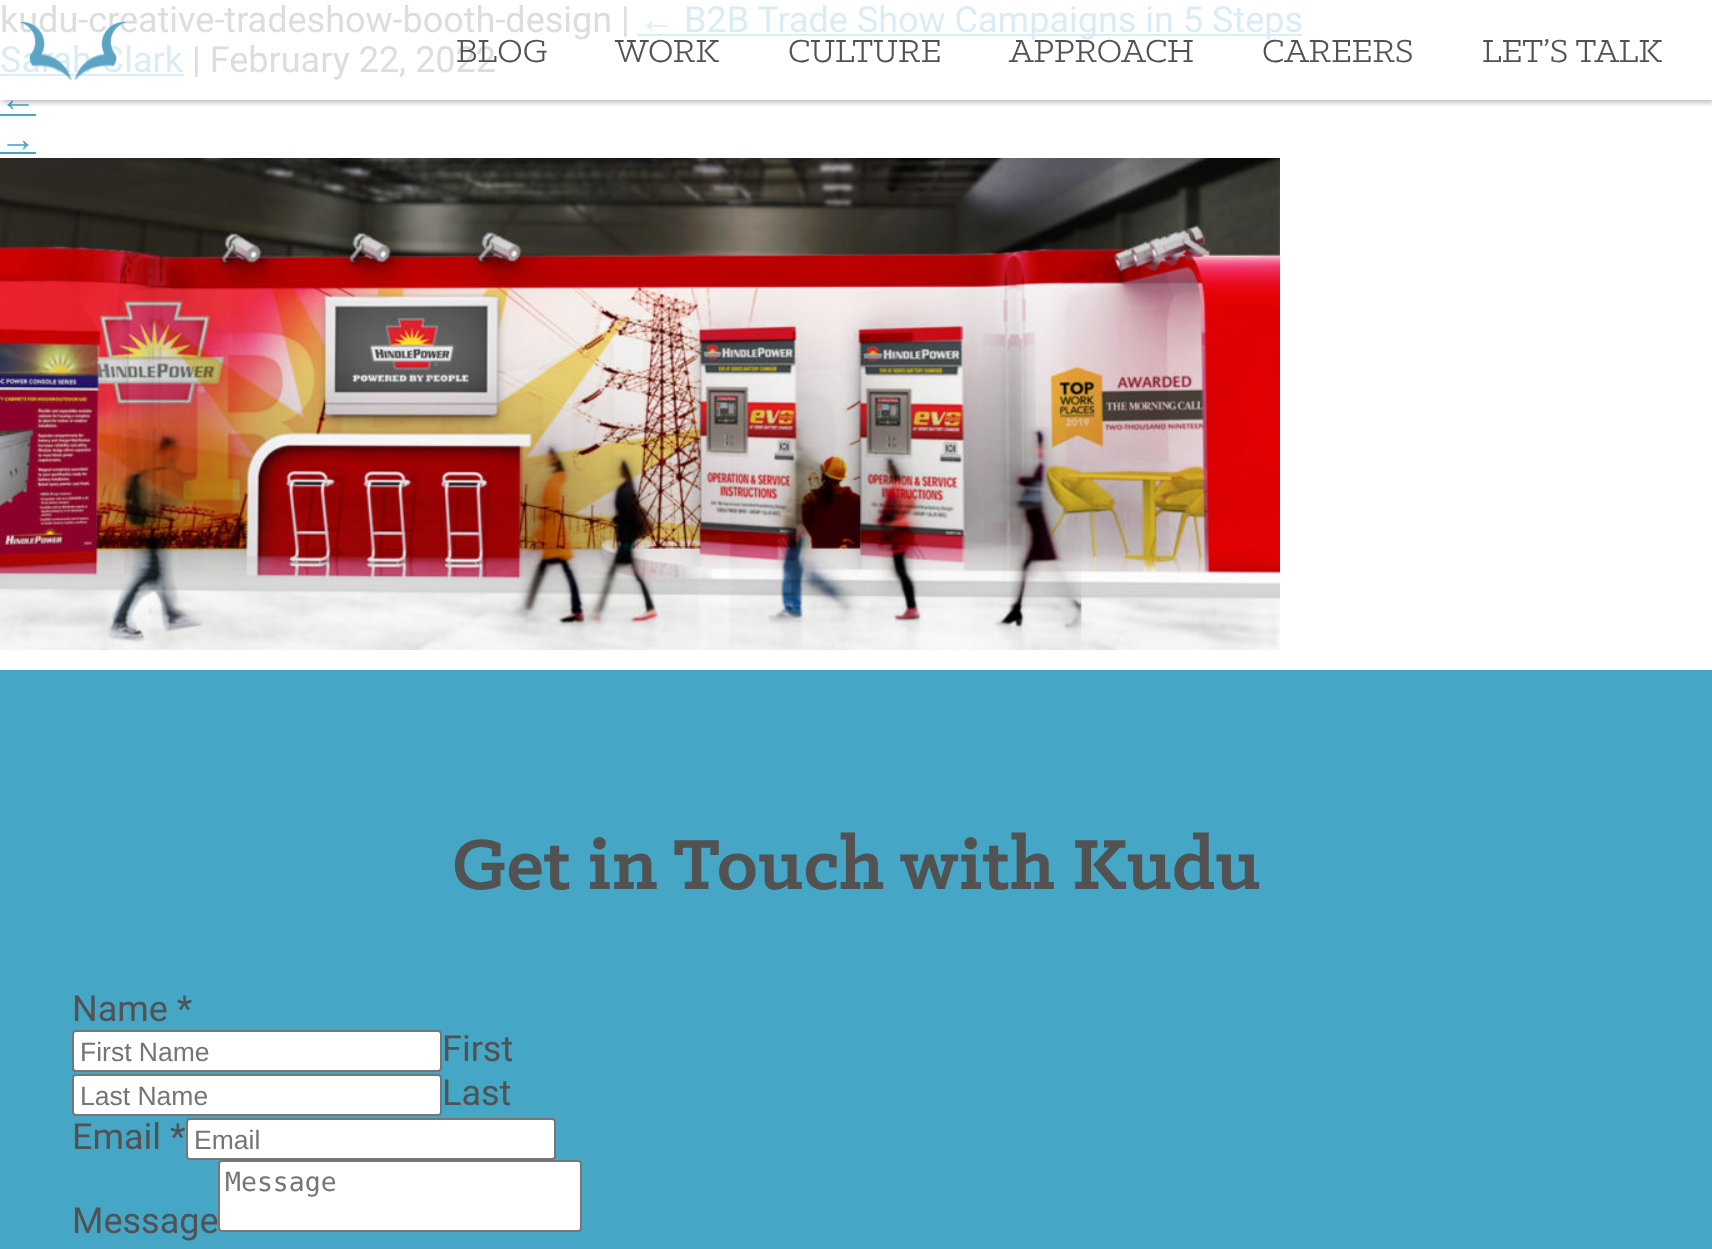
<svg xmlns="http://www.w3.org/2000/svg" width="1712" height="1249" viewBox="0 0 1712 1249">
  <style>
    .t1 { font: 36px Roboto; fill: #dcdddd; }
    .t2 { font: 36px Liberation Sans; fill: #daedf4; }
    .t3 { font: 36px Roboto; fill: #daedf4; }
    .t4 { font: 36px Liberation Sans; fill: #46a6c6; }
    .t5 { font: 36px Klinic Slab; fill: #525252; }
    .t6 { font: bold 80px Klinic Slab; fill: #525252; }
    .t7 { font: 36px Roboto; fill: #525252; }
    .t8 { font: 26.5px Liberation Sans; fill: #757575; }
    .t9 { font: 26.5px DejaVu Sans Mono; fill: #757575; }
  </style>
  <defs>
    <clipPath id="clip1"><rect x="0" y="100" width="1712" height="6"/></clipPath>
  </defs>
  <rect width="100%" height="100%" fill="#fff"/>
  <text x="0" y="32" class="t1">kudu-creative-tradeshow-booth-design |</text>
  <text x="639" y="32" class="t2">←</text>
  <rect x="638" y="34" width="664" height="2" fill="#daedf4"/>
  <text x="684" y="32" class="t3">B2B Trade Show Campaigns in 5 Steps</text>
  <text x="0" y="72" class="t3">Sarah Clark</text>
  <rect x="0" y="74" width="184" height="2" fill="#daedf4"/>
  <text x="192" y="72" class="t1">| February 22, 2022</text>
  <text x="0" y="111" class="t4">←</text>
  <rect x="0" y="114" width="36" height="2" fill="#46a6c6"/>
  <text x="0" y="151" class="t4">→</text>
  <rect x="0" y="152" width="36" height="2" fill="#46a6c6"/>
  <image x="0" y="158" width="1280" height="492" href="images/1.png"/>
  <g clip-path="url(#clip1)">
    <rect x="2" y="2" width="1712" height="100" fill="#0000004d" filter="blur(3px)"/>
  </g>
  <image x="20" y="22" width="106" height="58" href="images/2.png"/>
  <text x="456" y="62" class="t5">BLOG</text>
  <text x="615" y="62" class="t5">WORK</text>
  <text x="788" y="62" class="t5">CULTURE</text>
  <text x="1009" y="62" class="t5">APPROACH</text>
  <text x="1262" y="62" class="t5">CAREERS</text>
  <text x="1482" y="62" class="t5">LET’S TALK</text>
  <rect x="0" y="670" width="1712" height="579" fill="#46a6c6"/>
  <text x="452" y="889" class="t6">Get in Touch with Kudu</text>
  <text x="72" y="1021" class="t7">Name *</text>
  <rect x="73" y="1031" width="368" height="40" rx="3" fill="#fff" stroke="#767676" stroke-width="2"/>
  <text x="80" y="1061" class="t8">First Name</text>
  <text x="442" y="1061" class="t7">First</text>
  <rect x="73" y="1075" width="368" height="40" rx="3" fill="#fff" stroke="#767676" stroke-width="2"/>
  <text x="80" y="1105" class="t8">Last Name</text>
  <text x="442" y="1105" class="t7">Last</text>
  <text x="72" y="1149" class="t7">Email *</text>
  <rect x="187" y="1119" width="368" height="40" rx="3" fill="#fff" stroke="#767676" stroke-width="2"/>
  <text x="194" y="1149" class="t8">Email</text>
  <rect x="219" y="1161" width="362" height="70" rx="3" fill="#fff" stroke="#767676" stroke-width="2"/>
  <text x="225" y="1191" class="t9">Message</text>
  <text x="72" y="1233" class="t7">Message</text>
</svg>
